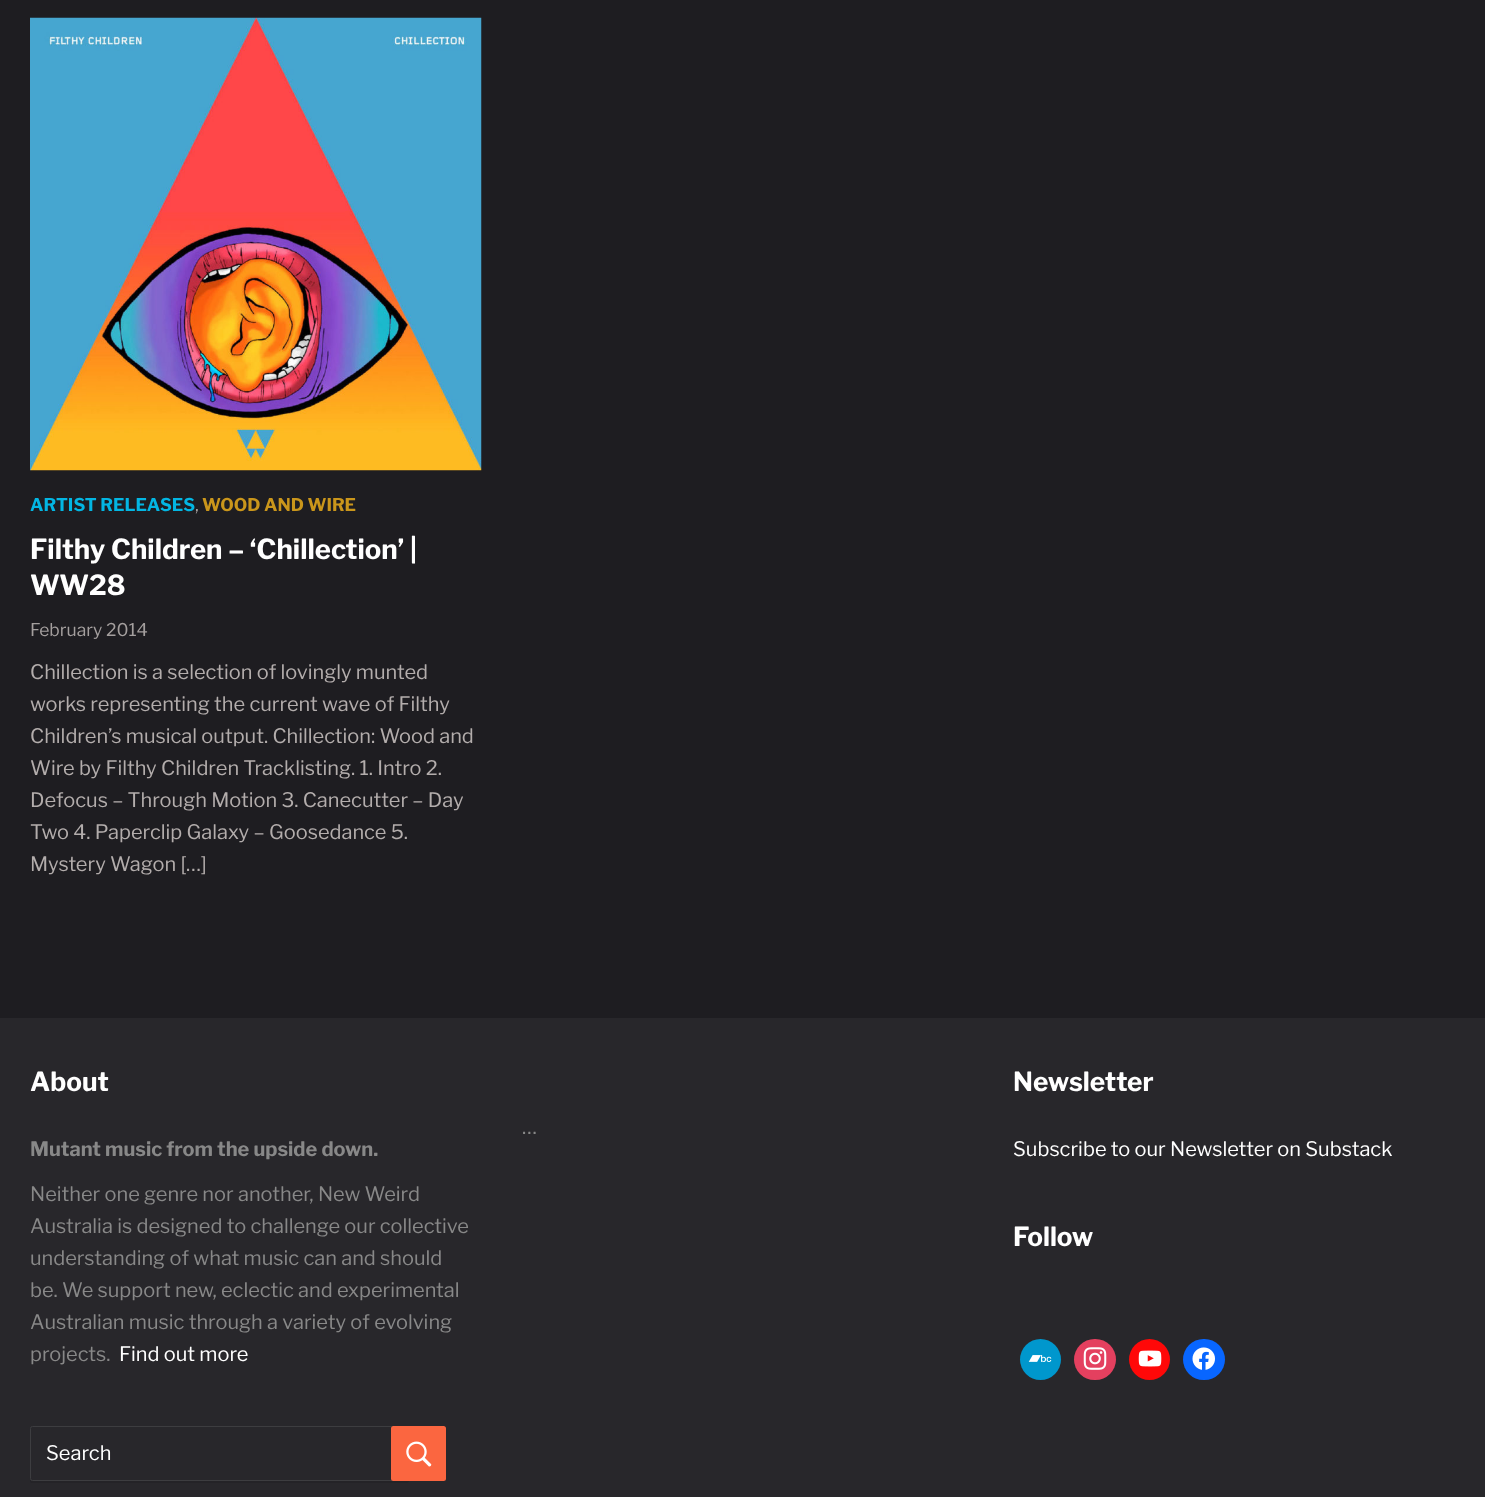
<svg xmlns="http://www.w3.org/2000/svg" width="1485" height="1497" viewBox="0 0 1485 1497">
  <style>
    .t1 { font: bold 17.5px Libre Franklin; fill: #03b6e3; }
    .t2 { font: 17.5px Libre Franklin; fill: #a49f9e; }
    .t3 { font: bold 17.5px Libre Franklin; fill: #ca961b; }
    .t4 { font: bold 27.5px Libre Franklin; fill: #fff; }
    .t5 { font: 20px Libre Franklin; fill: #b3adac; }
    .t6 { font: bold 26.25px Libre Franklin; fill: #fff; }
    .t7 { font: bold 20px Libre Franklin; fill: #888; }
    .t8 { font: 20px Libre Franklin; fill: #888; }
    .t9 { font: 20px Libre Franklin; fill: #fff; }
  </style>
  <rect width="100%" height="100%" fill="#1e1d21"/>
  <image x="30" y="17" width="452" height="454" href="images/1.png"/>
  <text x="30" y="511" class="t1">ARTIST RELEASES</text>
  <text x="195" y="511" class="t2">,</text>
  <text x="202" y="511" class="t3">WOOD AND WIRE</text>
  <text x="30" y="559" class="t4">Filthy Children – ‘Chillection’ |</text>
  <text x="30" y="595" class="t4">WW28</text>
  <text x="30" y="636" class="t2">February 2014</text>
  <text x="30" y="679" class="t5">Chillection is a selection of lovingly munted</text>
  <text x="30" y="711" class="t5">works representing the current wave of Filthy</text>
  <text x="30" y="743" class="t5">Children’s musical output. Chillection: Wood and</text>
  <text x="30" y="775" class="t5">Wire by Filthy Children Tracklisting. 1. Intro 2.</text>
  <text x="30" y="807" class="t5">Defocus – Through Motion 3. Canecutter – Day</text>
  <text x="30" y="839" class="t5">Two 4. Paperclip Galaxy – Goosedance 5.</text>
  <text x="30" y="871" class="t5">Mystery Wagon […]</text>
  <rect x="0" y="1018" width="1485" height="479" fill="#28272b"/>
  <text x="30" y="1091" class="t6">About</text>
  <text x="30" y="1156" class="t7">Mutant music from the upside down.</text>
  <text x="30" y="1201" class="t8">Neither one genre nor another, New Weird</text>
  <text x="30" y="1233" class="t8">Australia is designed to challenge our collective</text>
  <text x="30" y="1265" class="t8">understanding of what music can and should</text>
  <text x="30" y="1297" class="t8">be. We support new, eclectic and experimental</text>
  <text x="30" y="1329" class="t8">Australian music through a variety of evolving</text>
  <text x="30" y="1361" class="t8">projects.</text>
  <text x="119" y="1361" class="t9">Find out more</text>
  <path d="M30 1479V1480C30 1482 31 1483 32 1483H406C408 1483 409 1482 409 1480V1429V1479C409 1480 408 1481 406 1481H32C31 1481 30 1480 30 1479Z" fill="#242327"/>
  <rect x="30.5" y="1426.5" width="378" height="54" rx="2" fill="none" stroke="#3d3d40"/>
  <text x="46" y="1460" class="t9">Search</text>
  <rect x="391" y="1426" width="55" height="55" rx="2.5" fill="#fb6640"/>
  <image x="406" y="1441" width="26" height="26" href="images/2.png"/>
  <text x="522" y="1134" class="t8">…</text>
  <text x="1013" y="1091" class="t6">Newsletter</text>
  <text x="1013" y="1156" class="t9">Subscribe to our Newsletter on Substack</text>
  <text x="1013" y="1246" class="t6">Follow</text>
  <circle cx="1040.5" cy="1359.5" r="20.5" fill="#0097cd"/>
  <image x="1028" y="1355" width="24" height="7" href="images/3.png"/>
  <rect x="1074" y="1339" width="42" height="41" rx="20.5" fill="#e4405f"/>
  <image x="1083" y="1347" width="24" height="23" href="images/4.png"/>
  <circle cx="1149.5" cy="1359.5" r="20.5" fill="#ff0808"/>
  <image x="1138" y="1350" width="24" height="17" href="images/5.png"/>
  <rect x="1183" y="1339" width="42" height="41" rx="20.5" fill="#0866ff"/>
  <image x="1192" y="1347" width="23" height="23" href="images/6.png"/>
</svg>
